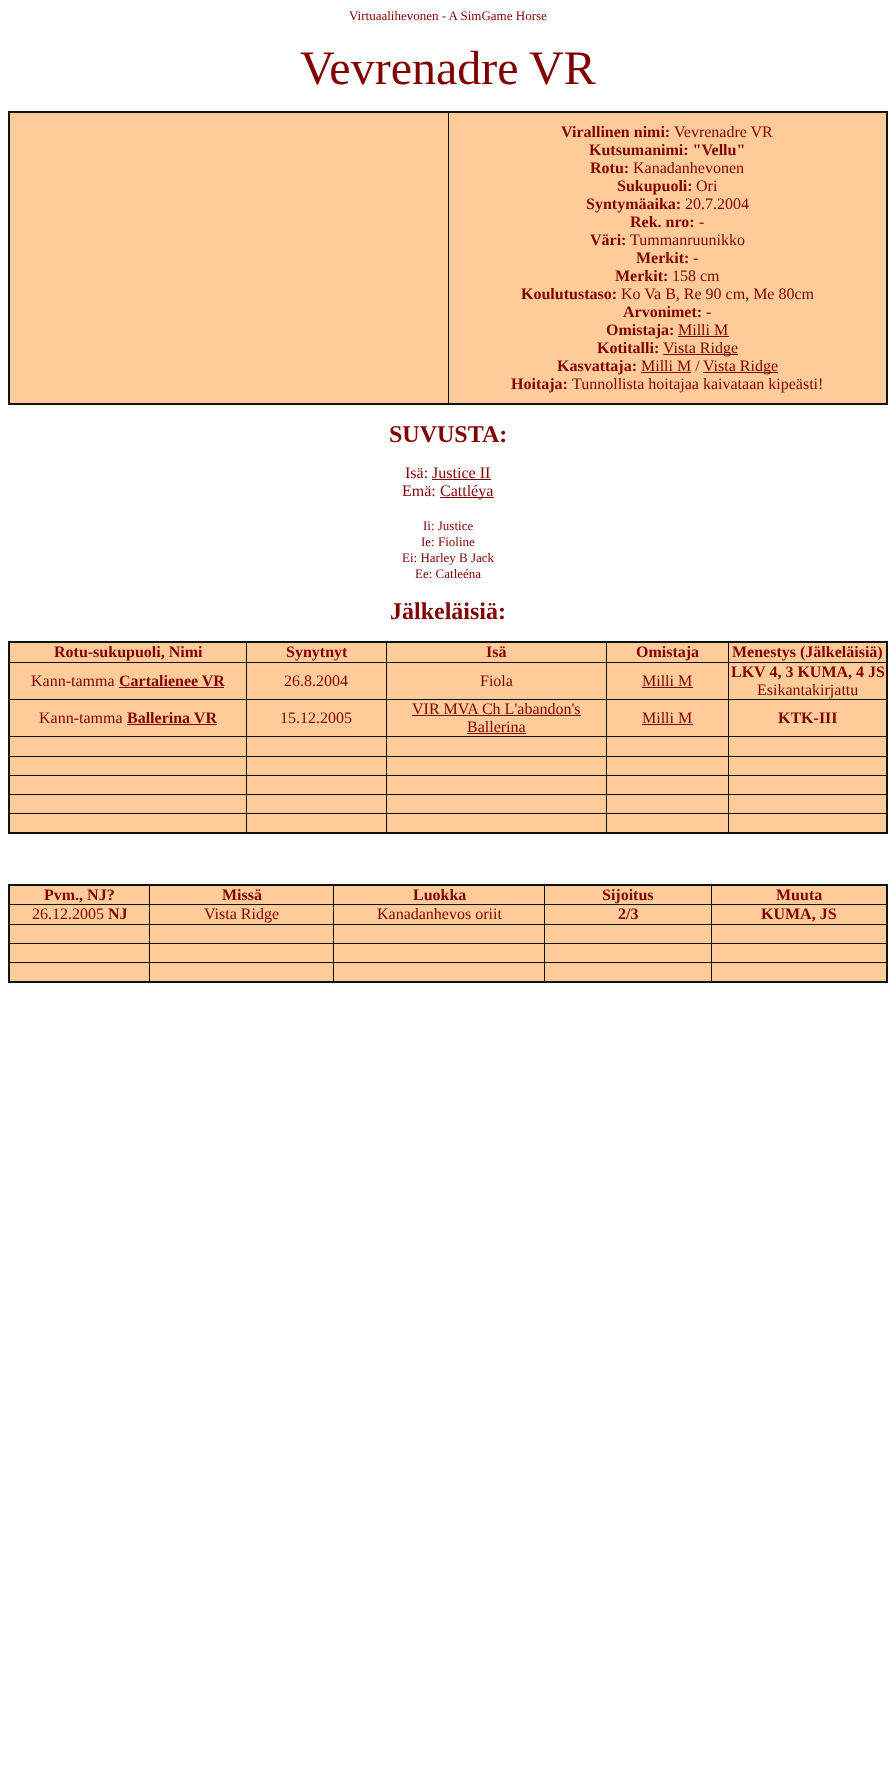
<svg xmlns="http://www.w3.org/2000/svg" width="896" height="1768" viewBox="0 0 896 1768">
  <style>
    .t1 { font: 13px Liberation Serif; fill: #800000; }
    .t2 { font: 48px Liberation Serif; fill: #800000; }
    .t3 { font: bold 16px Liberation Serif; fill: #800000; }
    .t4 { font: 16px Liberation Serif; fill: #800000; }
    .t5 { font: bold 24px Liberation Serif; fill: #800000; }
  </style>
  <rect width="100%" height="100%" fill="#fff"/>
  <text x="349" y="20" class="t1">Virtuaalihevonen - A SimGame Horse</text>
  <text x="300" y="84" class="t2">Vevrenadre</text>
  <text x="529" y="84" class="t2">VR</text>
  <rect x="10" y="113" width="876" height="290" fill="#fc9"/>
  <rect x="448" y="112" width="1" height="293" fill="#111"/>
  <rect x="8" y="111" width="880" height="2" fill="#111"/>
  <rect x="886" y="111" width="2" height="294" fill="#111"/>
  <rect x="8" y="403" width="880" height="2" fill="#111"/>
  <rect x="8" y="111" width="2" height="294" fill="#111"/>
  <text x="561" y="137" class="t3">Virallinen nimi:</text>
  <text x="674" y="137" class="t4">Vevrenadre VR</text>
  <text x="589" y="155" class="t3">Kutsumanimi: "Vellu"</text>
  <text x="590" y="173" class="t3">Rotu:</text>
  <text x="633" y="173" class="t4">Kanadanhevonen</text>
  <text x="617" y="191" class="t3">Sukupuoli:</text>
  <text x="696" y="191" class="t4">Ori</text>
  <text x="586" y="209" class="t3">Syntymäaika:</text>
  <text x="685" y="209" class="t4">20.7.2004</text>
  <text x="630" y="227" class="t3">Rek. nro:</text>
  <text x="699" y="227" class="t4">-</text>
  <text x="590" y="245" class="t3">Väri:</text>
  <text x="630" y="245" class="t4">Tummanruunikko</text>
  <text x="636" y="263" class="t3">Merkit:</text>
  <text x="693" y="263" class="t4">-</text>
  <text x="615" y="281" class="t3">Merkit:</text>
  <text x="672" y="281" class="t4">158 cm</text>
  <text x="521" y="299" class="t3">Koulutustaso:</text>
  <text x="621" y="299" class="t4">Ko Va B, Re 90 cm, Me 80cm</text>
  <text x="623" y="317" class="t3">Arvonimet:</text>
  <text x="706" y="317" class="t4">-</text>
  <text x="606" y="335" class="t3">Omistaja:</text>
  <text x="678" y="335" class="t4">Milli M</text>
  <rect x="678" y="336" width="51" height="1" fill="#800000"/>
  <text x="597" y="353" class="t3">Kotitalli:</text>
  <rect x="663" y="354" width="75" height="1" fill="#800000"/>
  <text x="663" y="353" class="t4">Vista Ridge</text>
  <text x="557" y="371" class="t3">Kasvattaja:</text>
  <text x="641" y="371" class="t4">Milli M /</text>
  <rect x="641" y="372" width="50" height="1" fill="#800000"/>
  <rect x="703" y="372" width="75" height="1" fill="#800000"/>
  <text x="703" y="371" class="t4">Vista Ridge</text>
  <text x="511" y="389" class="t3">Hoitaja:</text>
  <text x="572" y="389" class="t4">Tunnollista hoitajaa kaivataan kipeästi!</text>
  <text x="389" y="442" class="t5">SUVUSTA:</text>
  <text x="405" y="478" class="t4">Isä: Justice II</text>
  <rect x="432" y="479" width="59" height="1" fill="#800000"/>
  <text x="402" y="496" class="t4">Emä:</text>
  <rect x="440" y="497" width="54" height="1" fill="#800000"/>
  <text x="440" y="496" class="t4">Cattléya</text>
  <text x="423" y="530" class="t1">Ii: Justice</text>
  <text x="421" y="546" class="t1">Ie: Fioline</text>
  <text x="402" y="562" class="t1">Ei: Harley B Jack</text>
  <text x="415" y="578" class="t1">Ee: Catleéna</text>
  <text x="390" y="619" class="t5">Jälkeläisiä:</text>
  <rect x="10" y="643" width="876" height="189" fill="#fc9"/>
  <rect x="728" y="662" width="160" height="1" fill="#111"/>
  <rect x="728" y="699" width="160" height="1" fill="#111"/>
  <rect x="728" y="736" width="160" height="1" fill="#111"/>
  <rect x="728" y="756" width="160" height="1" fill="#111"/>
  <rect x="728" y="775" width="160" height="1" fill="#111"/>
  <rect x="728" y="794" width="160" height="1" fill="#111"/>
  <rect x="728" y="813" width="160" height="1" fill="#111"/>
  <rect x="728" y="813" width="1" height="20" fill="#111"/>
  <rect x="606" y="813" width="123" height="1" fill="#111"/>
  <rect x="728" y="794" width="1" height="20" fill="#111"/>
  <rect x="606" y="794" width="123" height="1" fill="#111"/>
  <rect x="728" y="775" width="1" height="20" fill="#111"/>
  <rect x="606" y="775" width="123" height="1" fill="#111"/>
  <rect x="728" y="756" width="1" height="20" fill="#111"/>
  <rect x="606" y="756" width="123" height="1" fill="#111"/>
  <rect x="728" y="736" width="1" height="21" fill="#111"/>
  <rect x="606" y="736" width="123" height="1" fill="#111"/>
  <rect x="728" y="699" width="1" height="38" fill="#111"/>
  <rect x="606" y="699" width="123" height="1" fill="#111"/>
  <rect x="728" y="662" width="1" height="38" fill="#111"/>
  <rect x="606" y="662" width="123" height="1" fill="#111"/>
  <rect x="606" y="813" width="1" height="20" fill="#111"/>
  <rect x="386" y="813" width="221" height="1" fill="#111"/>
  <rect x="606" y="794" width="1" height="20" fill="#111"/>
  <rect x="386" y="794" width="221" height="1" fill="#111"/>
  <rect x="606" y="775" width="1" height="20" fill="#111"/>
  <rect x="386" y="775" width="221" height="1" fill="#111"/>
  <rect x="606" y="756" width="1" height="20" fill="#111"/>
  <rect x="386" y="756" width="221" height="1" fill="#111"/>
  <rect x="606" y="736" width="1" height="21" fill="#111"/>
  <rect x="386" y="736" width="221" height="1" fill="#111"/>
  <rect x="606" y="699" width="1" height="38" fill="#111"/>
  <rect x="386" y="699" width="221" height="1" fill="#111"/>
  <rect x="606" y="662" width="1" height="38" fill="#111"/>
  <rect x="386" y="662" width="221" height="1" fill="#111"/>
  <rect x="386" y="813" width="1" height="20" fill="#111"/>
  <rect x="246" y="813" width="141" height="1" fill="#111"/>
  <rect x="386" y="794" width="1" height="20" fill="#111"/>
  <rect x="246" y="794" width="141" height="1" fill="#111"/>
  <rect x="386" y="775" width="1" height="20" fill="#111"/>
  <rect x="246" y="775" width="141" height="1" fill="#111"/>
  <rect x="386" y="756" width="1" height="20" fill="#111"/>
  <rect x="246" y="756" width="141" height="1" fill="#111"/>
  <rect x="386" y="736" width="1" height="21" fill="#111"/>
  <rect x="246" y="736" width="141" height="1" fill="#111"/>
  <rect x="386" y="699" width="1" height="38" fill="#111"/>
  <rect x="246" y="699" width="141" height="1" fill="#111"/>
  <rect x="386" y="662" width="1" height="38" fill="#111"/>
  <rect x="246" y="662" width="141" height="1" fill="#111"/>
  <rect x="246" y="813" width="1" height="20" fill="#111"/>
  <rect x="9" y="813" width="238" height="1" fill="#111"/>
  <rect x="246" y="794" width="1" height="20" fill="#111"/>
  <rect x="9" y="794" width="238" height="1" fill="#111"/>
  <rect x="246" y="775" width="1" height="20" fill="#111"/>
  <rect x="9" y="775" width="238" height="1" fill="#111"/>
  <rect x="246" y="756" width="1" height="20" fill="#111"/>
  <rect x="9" y="756" width="238" height="1" fill="#111"/>
  <rect x="246" y="736" width="1" height="21" fill="#111"/>
  <rect x="9" y="736" width="238" height="1" fill="#111"/>
  <rect x="246" y="699" width="1" height="38" fill="#111"/>
  <rect x="9" y="699" width="238" height="1" fill="#111"/>
  <rect x="246" y="662" width="1" height="38" fill="#111"/>
  <rect x="9" y="662" width="238" height="1" fill="#111"/>
  <rect x="246" y="642" width="1" height="21" fill="#111"/>
  <rect x="386" y="642" width="1" height="21" fill="#111"/>
  <rect x="606" y="642" width="1" height="21" fill="#111"/>
  <rect x="728" y="642" width="1" height="21" fill="#111"/>
  <rect x="8" y="641" width="880" height="2" fill="#111"/>
  <rect x="886" y="641" width="2" height="193" fill="#111"/>
  <rect x="8" y="832" width="880" height="2" fill="#111"/>
  <rect x="8" y="641" width="2" height="193" fill="#111"/>
  <text x="54" y="657" class="t3">Rotu-sukupuoli, Nimi</text>
  <text x="286" y="657" class="t3">Synytnyt</text>
  <text x="486" y="657" class="t3">Isä</text>
  <text x="636" y="657" class="t3">Omistaja</text>
  <text x="732" y="657" class="t3">Menestys (Jälkeläisiä)</text>
  <text x="31" y="686" class="t4">Kann-tamma</text>
  <text x="119" y="686" class="t3">Cartalienee VR</text>
  <rect x="119" y="687" width="105" height="1" fill="#800000"/>
  <text x="284" y="686" class="t4">26.8.2004</text>
  <text x="480" y="686" class="t4">Fiola</text>
  <text x="642" y="686" class="t4">Milli M</text>
  <rect x="642" y="687" width="51" height="1" fill="#800000"/>
  <text x="731" y="677" class="t3">LKV 4, 3 KUMA, 4 JS</text>
  <text x="757" y="695" class="t4">Esikantakirjattu</text>
  <text x="39" y="723" class="t4">Kann-tamma</text>
  <text x="127" y="723" class="t3">Ballerina VR</text>
  <rect x="127" y="724" width="90" height="1" fill="#800000"/>
  <text x="280" y="723" class="t4">15.12.2005</text>
  <text x="412" y="714" class="t4">VIR MVA Ch L'abandon's</text>
  <rect x="412" y="715" width="169" height="1" fill="#800000"/>
  <text x="467" y="732" class="t4">Ballerina</text>
  <rect x="467" y="733" width="59" height="1" fill="#800000"/>
  <text x="642" y="723" class="t4">Milli M</text>
  <rect x="642" y="724" width="51" height="1" fill="#800000"/>
  <text x="778" y="723" class="t3">KTK-III</text>
  <rect x="10" y="886" width="876" height="95" fill="#fc9"/>
  <rect x="711" y="904" width="177" height="1" fill="#111"/>
  <rect x="711" y="924" width="177" height="1" fill="#111"/>
  <rect x="711" y="943" width="177" height="1" fill="#111"/>
  <rect x="711" y="962" width="177" height="1" fill="#111"/>
  <rect x="711" y="962" width="1" height="20" fill="#111"/>
  <rect x="544" y="962" width="168" height="1" fill="#111"/>
  <rect x="711" y="943" width="1" height="20" fill="#111"/>
  <rect x="544" y="943" width="168" height="1" fill="#111"/>
  <rect x="711" y="924" width="1" height="20" fill="#111"/>
  <rect x="544" y="924" width="168" height="1" fill="#111"/>
  <rect x="711" y="904" width="1" height="21" fill="#111"/>
  <rect x="544" y="904" width="168" height="1" fill="#111"/>
  <rect x="544" y="962" width="1" height="20" fill="#111"/>
  <rect x="333" y="962" width="212" height="1" fill="#111"/>
  <rect x="544" y="943" width="1" height="20" fill="#111"/>
  <rect x="333" y="943" width="212" height="1" fill="#111"/>
  <rect x="544" y="924" width="1" height="20" fill="#111"/>
  <rect x="333" y="924" width="212" height="1" fill="#111"/>
  <rect x="544" y="904" width="1" height="21" fill="#111"/>
  <rect x="333" y="904" width="212" height="1" fill="#111"/>
  <rect x="333" y="962" width="1" height="20" fill="#111"/>
  <rect x="149" y="962" width="185" height="1" fill="#111"/>
  <rect x="333" y="943" width="1" height="20" fill="#111"/>
  <rect x="149" y="943" width="185" height="1" fill="#111"/>
  <rect x="333" y="924" width="1" height="20" fill="#111"/>
  <rect x="149" y="924" width="185" height="1" fill="#111"/>
  <rect x="333" y="904" width="1" height="21" fill="#111"/>
  <rect x="149" y="904" width="185" height="1" fill="#111"/>
  <rect x="149" y="962" width="1" height="20" fill="#111"/>
  <rect x="9" y="962" width="141" height="1" fill="#111"/>
  <rect x="149" y="943" width="1" height="20" fill="#111"/>
  <rect x="9" y="943" width="141" height="1" fill="#111"/>
  <rect x="149" y="924" width="1" height="20" fill="#111"/>
  <rect x="9" y="924" width="141" height="1" fill="#111"/>
  <rect x="149" y="904" width="1" height="21" fill="#111"/>
  <rect x="9" y="904" width="141" height="1" fill="#111"/>
  <rect x="149" y="884" width="1" height="21" fill="#111"/>
  <rect x="333" y="884" width="1" height="21" fill="#111"/>
  <rect x="544" y="884" width="1" height="21" fill="#111"/>
  <rect x="711" y="884" width="1" height="21" fill="#111"/>
  <rect x="8" y="884" width="880" height="2" fill="#111"/>
  <rect x="886" y="884" width="2" height="99" fill="#111"/>
  <rect x="8" y="981" width="880" height="2" fill="#111"/>
  <rect x="8" y="884" width="2" height="99" fill="#111"/>
  <text x="44" y="900" class="t3">Pvm., NJ?</text>
  <text x="222" y="900" class="t3">Missä</text>
  <text x="413" y="900" class="t3">Luokka</text>
  <text x="602" y="900" class="t3">Sijoitus</text>
  <text x="776" y="900" class="t3">Muuta</text>
  <text x="32" y="919" class="t4">26.12.2005</text>
  <text x="108" y="919" class="t3">NJ</text>
  <text x="204" y="919" class="t4">Vista Ridge</text>
  <text x="377" y="919" class="t4">Kanadanhevos oriit</text>
  <text x="618" y="919" class="t3">2/3</text>
  <text x="761" y="919" class="t3">KUMA, JS</text>
</svg>
